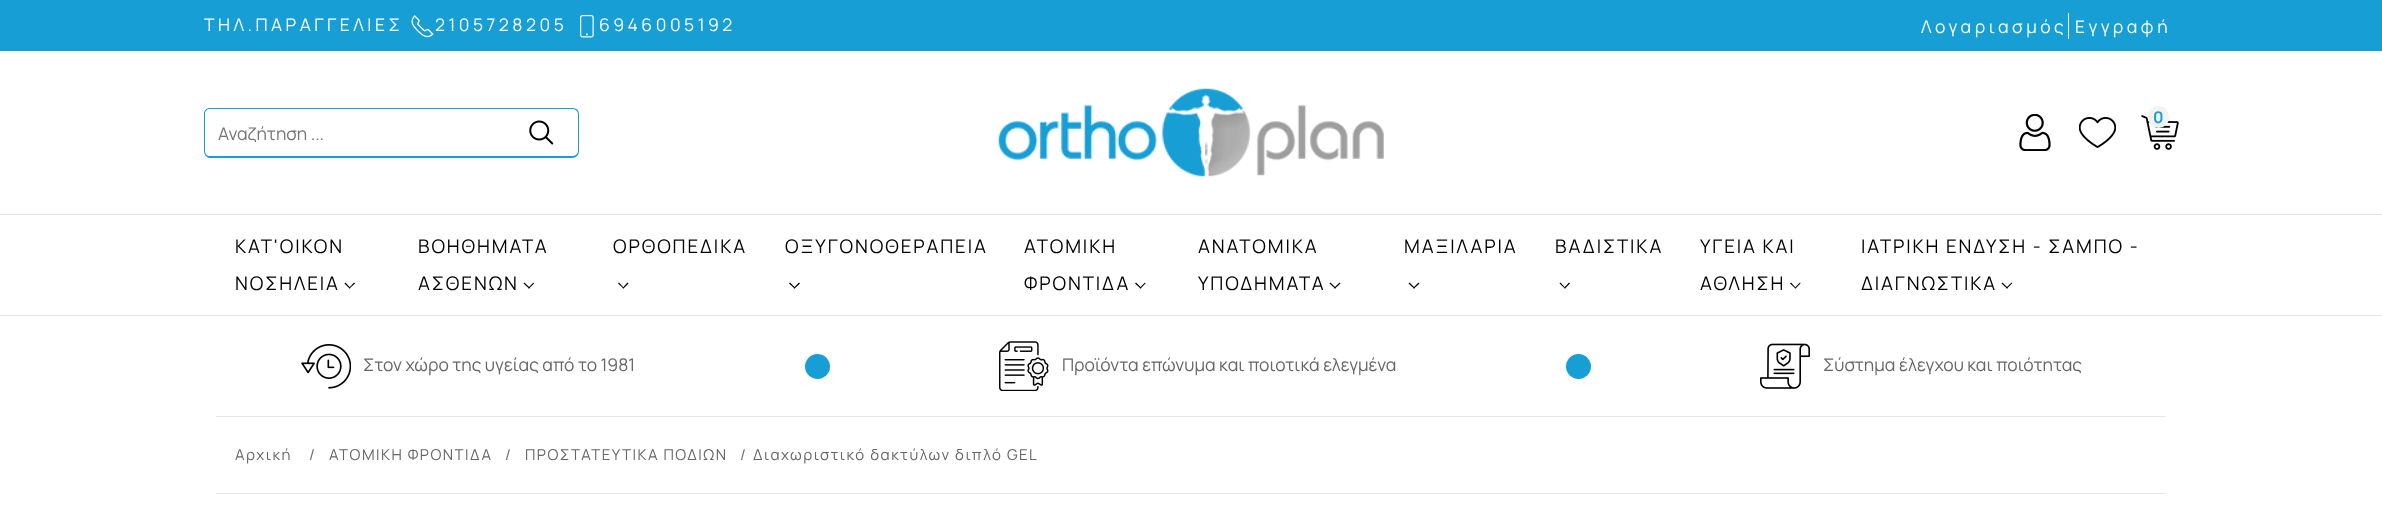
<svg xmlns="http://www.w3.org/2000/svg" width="2382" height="516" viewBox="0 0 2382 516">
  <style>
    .t1 { font: 17.5px Manrope; letter-spacing: 3.5px; fill: #fff; }
    .t2 { font: bold 16px Manrope; fill: #169ed5; }
    .t3 { font: 17.5px Manrope; fill: #757575; }
    .t4 { font: 18.75px Manrope; letter-spacing: 1.9px; fill: #000; }
    .t5 { font: 17.5px Manrope; fill: #666; }
    .t6 { font: 15px Manrope; letter-spacing: 1.5px; fill: #666; }
  </style>
  <rect width="100%" height="100%" fill="#fff"/>
  <rect x="0" y="0" width="2382" height="51" fill="#169ed5"/>
  <text x="204" y="31" class="t1">ΤΗΛ.ΠΑΡΑΓΓΕΛΙΕΣ</text>
  <image x="411" y="15" width="23" height="23" href="images/1.png"/>
  <text x="435" y="31" class="t1">2105728205</text>
  <image x="580" y="15" width="14" height="23" href="images/2.png"/>
  <text x="599" y="31" class="t1">6946005192</text>
  <rect x="2068" y="13" width="1" height="26" fill="#fff"/>
  <text x="1921" y="33" class="t1">Λογαριασμός</text>
  <text x="2075" y="33" class="t1">Εγγραφή</text>
  <image x="998" y="88" width="386" height="89" href="images/3.png"/>
  <image x="2019" y="114" width="32" height="37" href="images/4.png"/>
  <image x="2079" y="117" width="37" height="31" href="images/5.png"/>
  <image x="2141" y="115" width="38" height="35" href="images/6.png"/>
  <rect x="2148" y="106" width="21" height="22" rx="10.5" fill="#f3f2f0"/>
  <text x="2153" y="123" class="t2">0</text>
  <path d="M210 108H504V158H210C207 158 204 155 204 151V114C204 110 207 108 210 108ZM210 109H504V156H210C207 156 205 154 205 151V114C205 111 207 109 210 109Z" fill="#169ed5" fill-rule="evenodd"/>
  <text x="218" y="140" class="t3">Αναζήτηση ...</text>
  <image x="529" y="120" width="25" height="25" href="images/7.png"/>
  <path d="M504 108H572C576 108 579 110 579 114V151C579 155 576 158 572 158H504ZM504 109H572C575 109 578 111 578 114V151C578 154 575 156 572 156H504Z" fill="#169ed5" fill-rule="evenodd"/>
  <rect x="0" y="214" width="2382" height="1" fill="#e6e6e6"/>
  <rect x="0" y="315" width="2382" height="1" fill="#e6e6e6"/>
  <text x="235" y="253" class="t4">ΚΑΤ'ΟΙΚΟΝ</text>
  <text x="235" y="290" class="t4">ΝΟΣΗΛΕΙΑ</text>
  <path d="M354 282.5L355 283.5L349.5 288.5L349 288Z" fill="#000"/>
  <path d="M345.5 282.5L350.5 288L349.5 288.5L344.5 283.5Z" fill="#000"/>
  <text x="418" y="253" class="t4">ΒΟΗΘΗΜΑΤΑ</text>
  <text x="418" y="290" class="t4">ΑΣΘΕΝΩΝ</text>
  <path d="M533.5 282.5L534 283.5L529 288.5L528 288Z" fill="#000"/>
  <path d="M524.5 282.5L530 288L529 288.5L523.5 283.5Z" fill="#000"/>
  <text x="613" y="253" class="t4">ΟΡΘΟΠΕΔΙΚΑ</text>
  <path d="M627.5 282.5L628.5 283.5L623.5 288.5L622.5 288Z" fill="#000"/>
  <path d="M619 282.5L624 288L623.5 288.5L618 283.5Z" fill="#000"/>
  <text x="785" y="253" class="t4">ΟΞΥΓΟΝΟΘΕΡΑΠΕΙΑ</text>
  <path d="M799 282.5L800 283.5L794.5 288.5L793.5 288Z" fill="#000"/>
  <path d="M790 282.5L795.5 288L794.5 288.5L789 283.5Z" fill="#000"/>
  <text x="1024" y="253" class="t4">ΑΤΟΜΙΚΗ</text>
  <text x="1024" y="290" class="t4">ΦΡΟΝΤΙΔΑ</text>
  <path d="M1145 282.5L1145.5 283.5L1140.5 288.5L1139.5 288Z" fill="#000"/>
  <path d="M1136 282.5L1141.5 288L1140.5 288.5L1135 283.5Z" fill="#000"/>
  <text x="1198" y="253" class="t4">ΑΝΑΤΟΜΙΚΑ</text>
  <text x="1198" y="290" class="t4">ΥΠΟΔΗΜΑΤΑ</text>
  <path d="M1339.5 282.5L1340.5 283.5L1335 288.5L1334 288Z" fill="#000"/>
  <path d="M1330.5 282.5L1336 288L1335 288.5L1329.5 283.5Z" fill="#000"/>
  <text x="1404" y="253" class="t4">ΜΑΞΙΛΑΡΙΑ</text>
  <path d="M1418.5 282.5L1419.5 283.5L1414 288.5L1413 288Z" fill="#000"/>
  <path d="M1409.5 282.5L1415 288L1414 288.5L1408.5 283.5Z" fill="#000"/>
  <text x="1555" y="253" class="t4">ΒΑΔΙΣΤΙΚΑ</text>
  <path d="M1569 282.5L1570 283.5L1565 288.5L1564 288Z" fill="#000"/>
  <path d="M1560.5 282.5L1565.5 288L1565 288.5L1559.5 283.5Z" fill="#000"/>
  <text x="1700" y="253" class="t4">ΥΓΕΙΑ ΚΑΙ</text>
  <text x="1700" y="290" class="t4">ΑΘΛΗΣΗ</text>
  <path d="M1800 282.5L1800.5 283.5L1795.5 288.5L1794.5 288Z" fill="#000"/>
  <path d="M1791 282.5L1796 288L1795.5 288.5L1790 283.5Z" fill="#000"/>
  <text x="1861" y="253" class="t4">ΙΑΤΡΙΚΗ ΕΝΔΥΣΗ - ΣΑΜΠΟ -</text>
  <text x="1861" y="290" class="t4">ΔΙΑΓΝΩΣΤΙΚΑ</text>
  <path d="M2011.5 282.5L2012 283.5L2007 288.5L2006 288Z" fill="#000"/>
  <path d="M2002.5 282.5L2008 288L2007 288.5L2001.5 283.5Z" fill="#000"/>
  <rect x="216" y="416" width="1950" height="1" fill="#e6e6e6"/>
  <image x="301" y="344" width="50" height="45" href="images/8.png"/>
  <text x="363" y="371" class="t5">Στον χώρο της υγείας από το 1981</text>
  <circle cx="817.5" cy="366.5" r="12.5" fill="#169ed5"/>
  <image x="999" y="341" width="50" height="50" href="images/9.png"/>
  <text x="1062" y="371" class="t5">Προϊόντα επώνυμα και ποιοτικά ελεγμένα</text>
  <circle cx="1578.5" cy="366.5" r="12.5" fill="#169ed5"/>
  <image x="1760" y="343" width="50" height="46" href="images/10.png"/>
  <text x="1823" y="371" class="t5">Σύστημα έλεγχου και ποιότητας</text>
  <rect x="216" y="493" width="1950" height="1" fill="#e6e6e6"/>
  <text x="235" y="460" class="t6">Αρχική</text>
  <text x="309" y="460" class="t6">/</text>
  <text x="329" y="460" class="t6">ΑΤΟΜΙΚΗ ΦΡΟΝΤΙΔΑ</text>
  <text x="505" y="460" class="t6">/</text>
  <text x="525" y="460" class="t6">ΠΡΟΣΤΑΤΕΥΤΙΚΑ ΠΟΔΙΩΝ</text>
  <text x="740" y="460" class="t6">/</text>
  <text x="753" y="460" class="t6">Διαχωριστικό δακτύλων διπλό GEL</text>
</svg>
